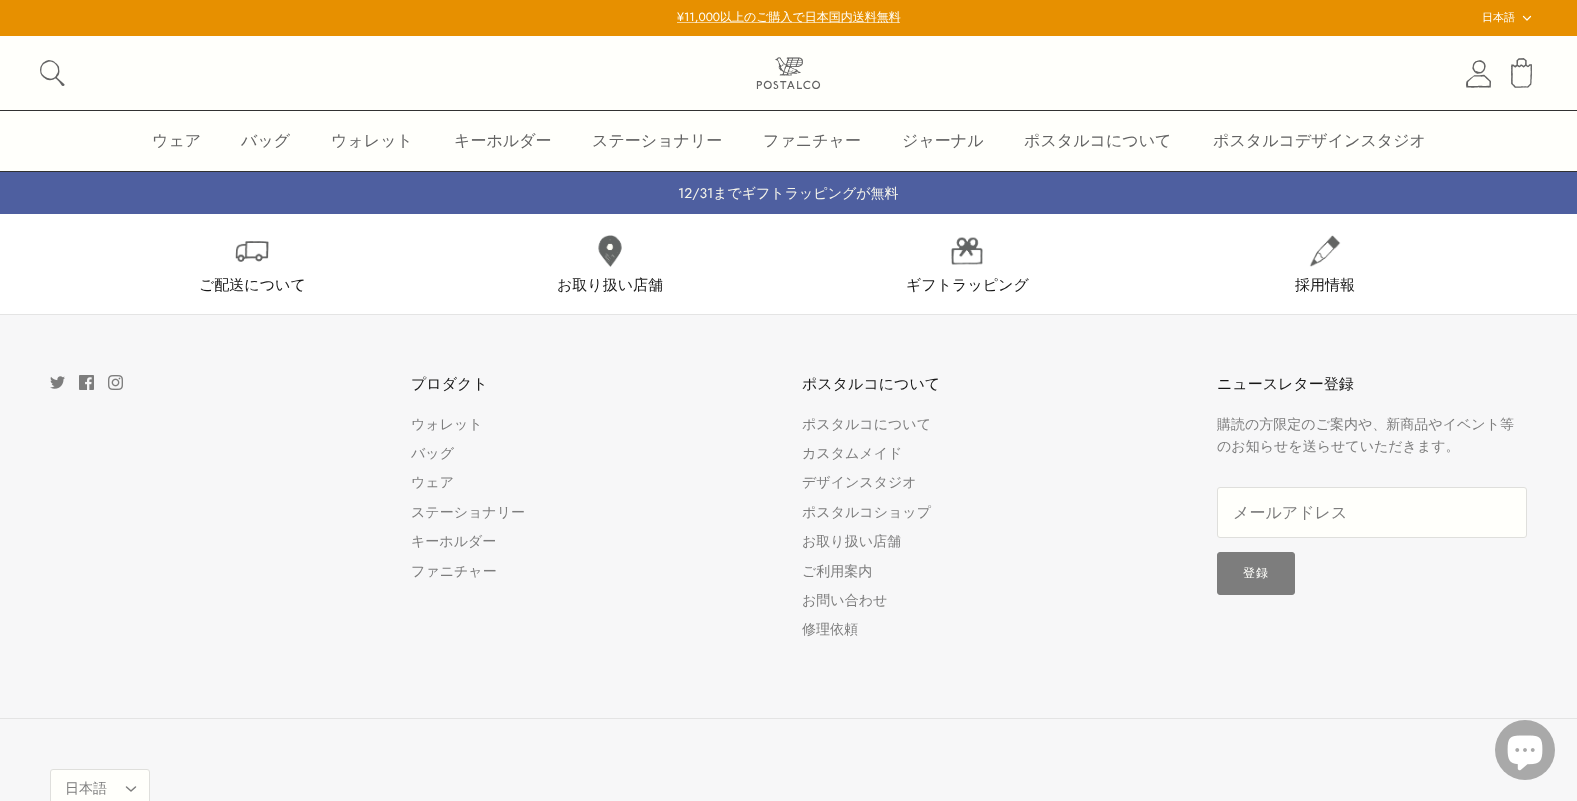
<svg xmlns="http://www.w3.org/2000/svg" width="1577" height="801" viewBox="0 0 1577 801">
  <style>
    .t1 { font: 12px Jost; fill: #fffffb; }
    .t2 { font: 500 12px WenQuanYi Zen Hei; fill: #fffffb; }
    .t3 { font: 500 11px WenQuanYi Zen Hei; fill: #fffffb; }
    .t4 { font: 500 16px WenQuanYi Zen Hei; fill: #636363; }
    .t5 { font: 14px Jost; fill: #f7f6eb; }
    .t6 { font: 500 14px WenQuanYi Zen Hei; fill: #f7f6eb; }
    .t7 { font: 500 15px WenQuanYi Zen Hei; fill: #171717; }
    .t8 { font: 500 14px WenQuanYi Zen Hei; fill: #7d7d7d; }
    .t9 { font: 500 16px WenQuanYi Zen Hei; fill: #7d7d7d; }
    .t10 { font: 500 12px WenQuanYi Zen Hei; letter-spacing: 1px; fill: #fffffb; }
  </style>
  <rect width="100%" height="100%" fill="#fffffb"/>
  <rect x="0" y="0" width="1577" height="36" fill="#e79000"/>
  <rect x="677" y="22" width="223" height="1" fill="#f5d397"/>
  <text x="677" y="21" class="t1">¥11,000</text>
  <text x="720" y="21" class="t2">以上のご購入で日本国内送料無料</text>
  <text x="1482" y="21" class="t3">日本語</text>
  <path d="M1523.5 16.5L1527 20L1530.5 16.5" fill="none" stroke="#fffffb" stroke-width="1.2" stroke-linecap="round" stroke-linejoin="round"/>
  <rect x="0" y="110" width="1577" height="1" fill="#313131"/>
  <image x="40" y="60" width="25" height="26" href="images/1.png"/>
  <image x="756" y="57" width="65" height="32" href="images/2.png"/>
  <image x="1466" y="60" width="25" height="28" href="images/3.png"/>
  <image x="1511" y="58" width="21" height="30" href="images/4.png"/>
  <rect x="0" y="171" width="1577" height="1" fill="#313131"/>
  <text x="152" y="146" class="t4">ウェア</text>
  <text x="241" y="146" class="t4">バッグ</text>
  <text x="331" y="146" class="t4">ウォレット</text>
  <text x="454" y="146" class="t4">キーホルダー</text>
  <text x="592" y="146" class="t4">ステーショナリー</text>
  <text x="763" y="146" class="t4">ファニチャー</text>
  <text x="902" y="146" class="t4">ジャーナル</text>
  <text x="1024" y="146" class="t4">ポスタルコについて</text>
  <text x="1213" y="146" class="t4">ポスタルコデザインスタジオ</text>
  <rect x="0" y="172" width="1577" height="42" fill="#4e5fa0"/>
  <text x="678" y="198" class="t5">12/31</text>
  <text x="713" y="198" class="t6">までギフトラッピングが無料</text>
  <rect x="0" y="315" width="1577" height="486" fill="#f7f7f8"/>
  <rect x="0" y="214" width="1577" height="100" fill="#fff"/>
  <image x="235" y="241" width="34" height="21" href="images/5.png"/>
  <text x="199" y="290" class="t7">ご配送について</text>
  <image x="598" y="235" width="24" height="32" href="images/6.png"/>
  <text x="557" y="290" class="t7">お取り扱い店舗</text>
  <image x="951" y="237" width="32" height="28" href="images/7.png"/>
  <text x="906" y="290" class="t7">ギフトラッピング</text>
  <image x="1309" y="235" width="32" height="32" href="images/8.png"/>
  <text x="1295" y="290" class="t7">採用情報</text>
  <rect x="0" y="314" width="1577" height="1" fill="#e4e4e4"/>
  <image x="50" y="376" width="15" height="13" href="images/9.png"/>
  <image x="79" y="375" width="15" height="15" href="images/10.png"/>
  <image x="108" y="375" width="15" height="15" href="images/11.png"/>
  <text x="411" y="389" class="t7">プロダクト</text>
  <text x="411" y="429" class="t8">ウォレット</text>
  <text x="411" y="458" class="t8">バッグ</text>
  <text x="411" y="487" class="t8">ウェア</text>
  <text x="411" y="517" class="t8">ステーショナリー</text>
  <text x="411" y="546" class="t8">キーホルダー</text>
  <text x="411" y="576" class="t8">ファニチャー</text>
  <text x="802" y="389" class="t7">ポスタルコについて</text>
  <text x="802" y="429" class="t8">ポスタルコについて</text>
  <text x="802" y="458" class="t8">カスタムメイド</text>
  <text x="802" y="487" class="t8">デザインスタジオ</text>
  <text x="802" y="517" class="t8">ポスタルコショップ</text>
  <text x="802" y="546" class="t8">お取り扱い店舗</text>
  <text x="802" y="576" class="t8">ご利用案内</text>
  <text x="802" y="605" class="t8">お問い合わせ</text>
  <text x="802" y="634" class="t8">修理依頼</text>
  <text x="1217" y="389" class="t7">ニュースレター登録</text>
  <text x="1217" y="429" class="t8">購読の方限定のご案内や、新商品やイベント等</text>
  <text x="1217" y="451" class="t8">のお知らせを送らせていただきます。</text>
  <rect x="1217.5" y="487.5" width="309" height="50" rx="2.5" fill="#fffffb" stroke="#dfdfdc"/>
  <text x="1233" y="518" class="t9">メールアドレス</text>
  <rect x="1217.5" y="552.5" width="77" height="42" rx="2.5" fill="#7d7d7d" stroke="#7d7d7d"/>
  <text x="1243" y="577" class="t10">登録</text>
  <rect x="0" y="718" width="1577" height="1" fill="#e4e4e4"/>
  <rect x="50.5" y="769.5" width="99" height="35" rx="2.5" fill="#fffffb" stroke="#dfdfdc"/>
  <text x="65" y="793" class="t8">日本語</text>
  <path d="M126.5 787L131 791L135.5 787" fill="none" stroke="#7d7d7d" stroke-width="1.5" stroke-linecap="round" stroke-linejoin="round"/>
  <circle cx="1525" cy="750" r="30" fill="#a9a9a9"/>
  <image x="1507" y="735" width="36" height="36" href="images/12.png"/>
</svg>
